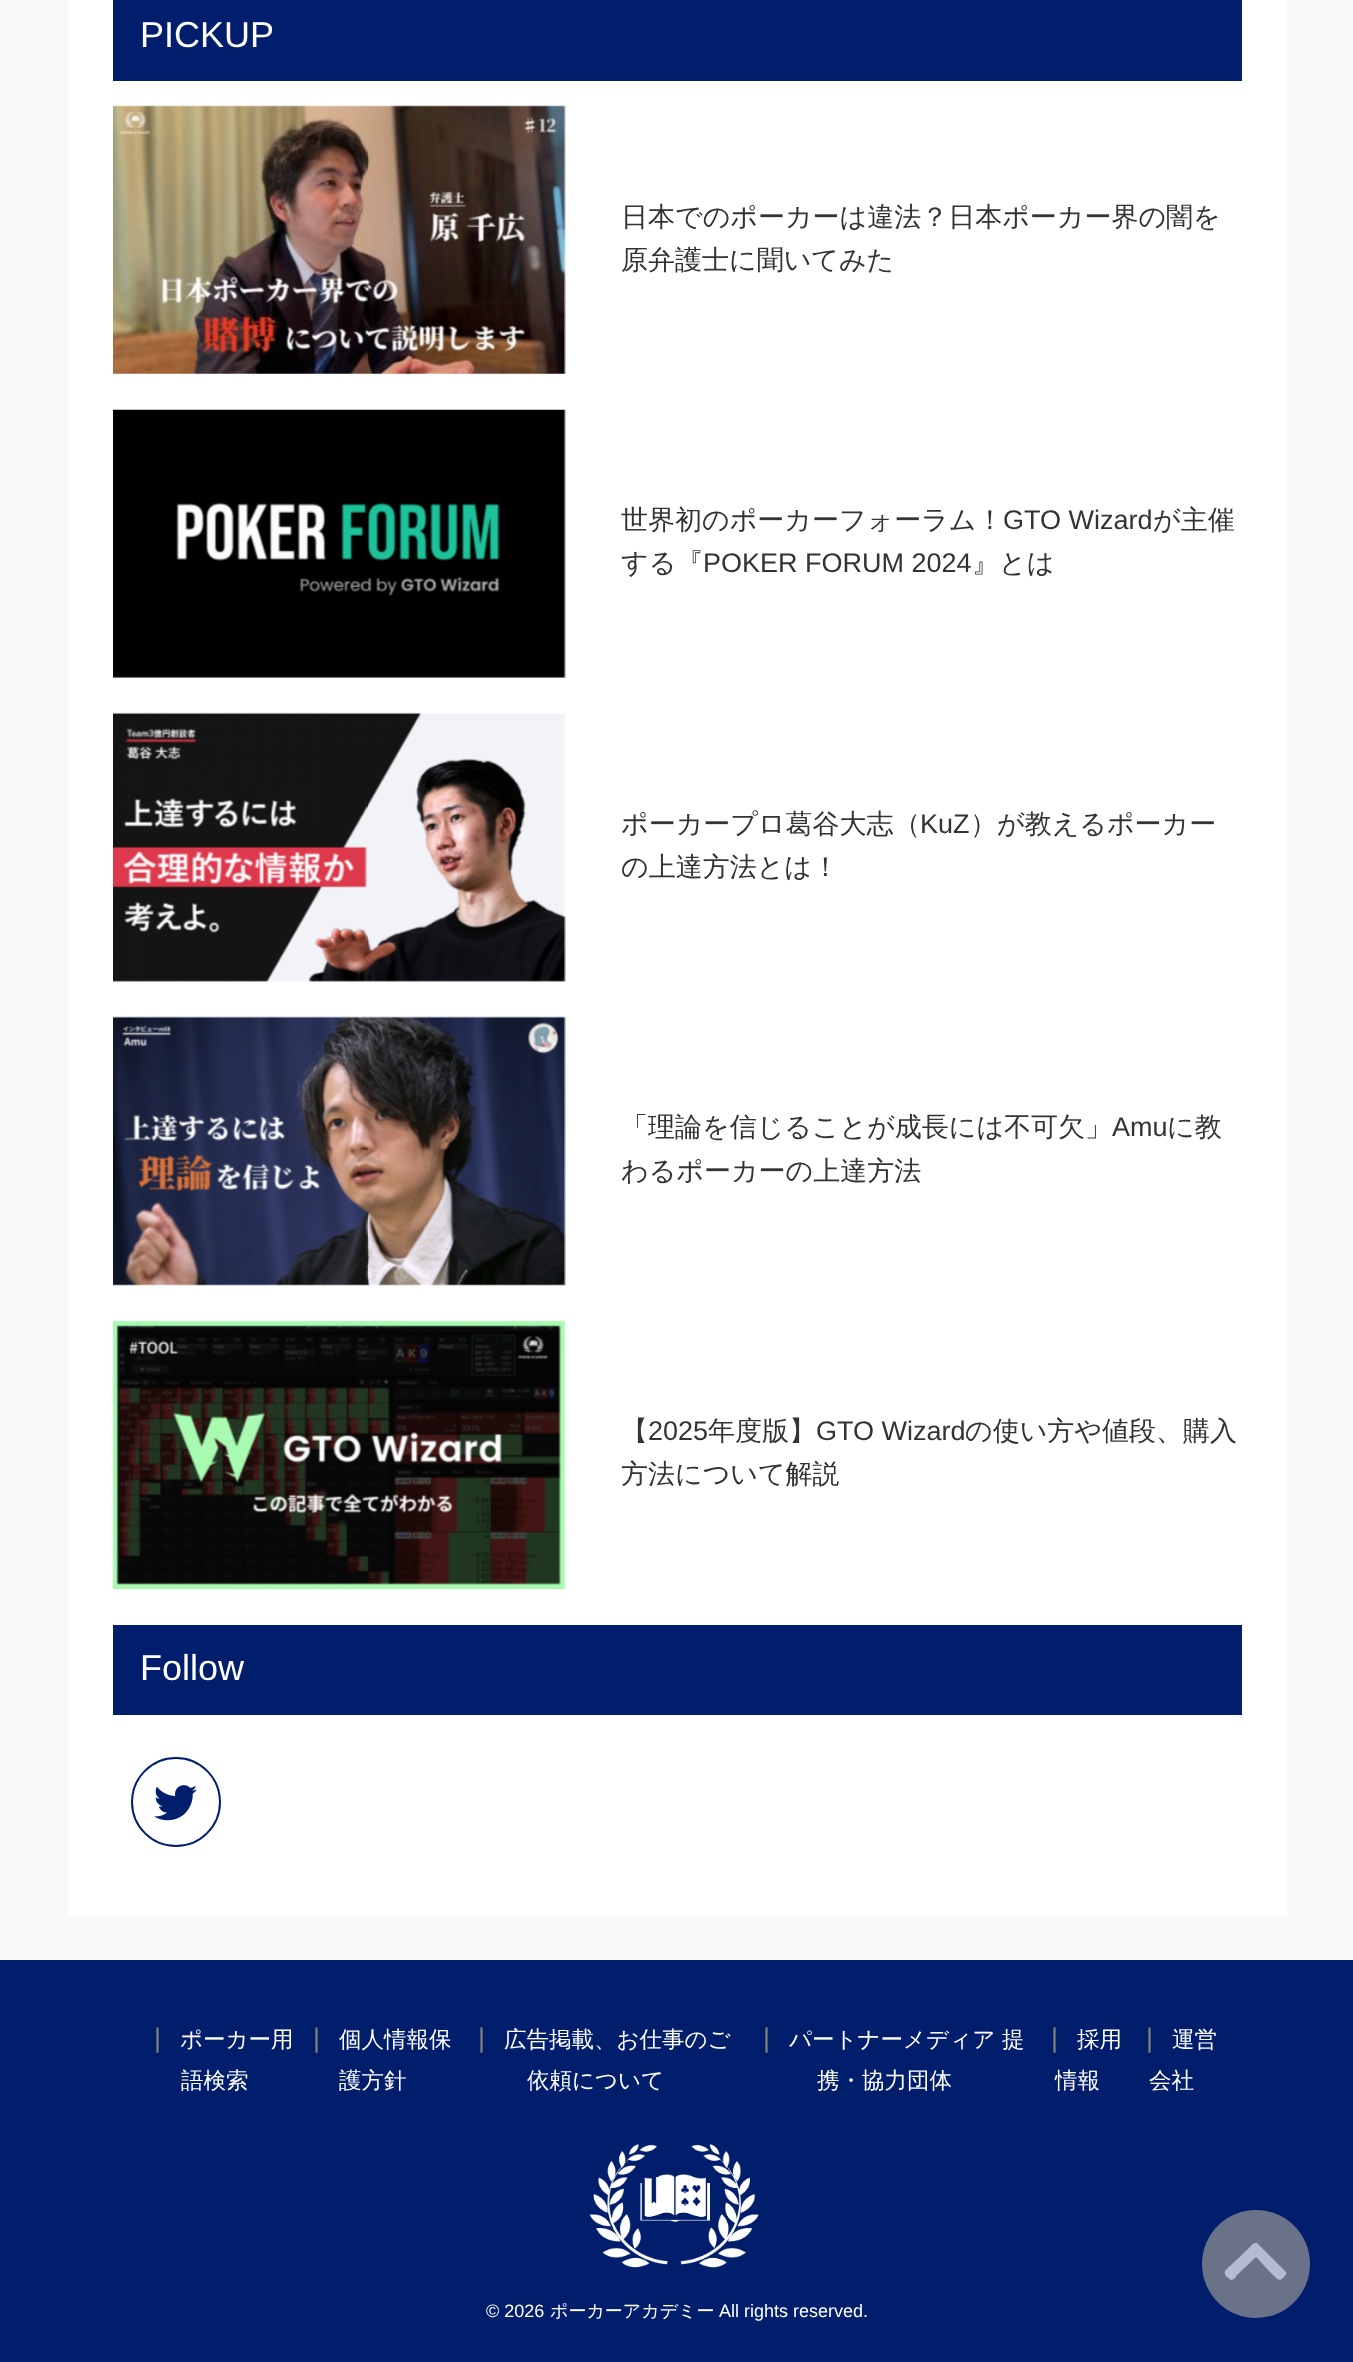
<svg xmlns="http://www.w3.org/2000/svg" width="1353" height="2362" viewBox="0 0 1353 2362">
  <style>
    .t1 { font: 36px Liberation Sans; fill: #fff; }
    .t2 { font: 500 27px WenQuanYi Zen Hei; fill: #333; }
    .t3 { font: 27px Liberation Sans; fill: #333; }
    .t4 { font: 27px Liberation Sans; fill: #808080; }
    .t5 { font: 500 22.5px WenQuanYi Zen Hei; fill: #fff; }
    .t6 { font: 18px Liberation Sans; fill: #fff; }
    .t7 { font: 500 18px WenQuanYi Zen Hei; fill: #fff; }
  </style>
  <rect width="100%" height="100%" fill="#f9f9f9"/>
  <rect x="68" y="0" width="1219" height="1915" fill="#fff"/>
  <rect x="113" y="0" width="1129" height="81" fill="#001e6c"/>
  <text x="140" y="47" class="t1">PICKUP</text>
  <image x="113" y="105" width="453" height="269" href="images/1.png"/>
  <text x="621" y="226" class="t2">日本でのポーカーは違法？日本ポーカー界の闇を</text>
  <text x="621" y="269" class="t2">原弁護士に聞いてみた</text>
  <image x="113" y="409" width="453" height="269" href="images/2.png"/>
  <text x="621" y="529" class="t2">世界初のポーカーフォーラム！</text>
  <text x="1003" y="529" class="t3">GTO Wizard</text>
  <text x="1153" y="529" class="t2">が主催</text>
  <text x="621" y="572" class="t2">する『</text>
  <text x="703" y="572" class="t3">POKER FORUM 2024</text>
  <text x="972" y="572" class="t2">』とは</text>
  <image x="113" y="712" width="453" height="270" href="images/3.png"/>
  <text x="621" y="833" class="t2">ポーカープロ葛谷大志（</text>
  <text x="920" y="833" class="t3">KuZ</text>
  <text x="970" y="833" class="t2">）が教えるポーカー</text>
  <text x="621" y="876" class="t2">の上達方法とは！</text>
  <image x="113" y="1016" width="453" height="270" href="images/4.png"/>
  <text x="621" y="1136" class="t2">「理論を信じることが成長には不可欠」</text>
  <text x="1112" y="1136" class="t3">Amu</text>
  <text x="1167" y="1136" class="t2">に教</text>
  <text x="621" y="1180" class="t2">わるポーカーの上達方法</text>
  <image x="113" y="1320" width="453" height="269" href="images/5.png"/>
  <text x="621" y="1440" class="t2">【</text>
  <text x="648" y="1440" class="t3">2025</text>
  <text x="708" y="1440" class="t2">年度版】</text>
  <text x="816" y="1440" class="t3">GTO Wizard</text>
  <text x="965" y="1440" class="t2">の使い方や値段、購入</text>
  <text x="621" y="1483" class="t2">方法について解説</text>
  <rect x="113" y="1625" width="1129" height="90" fill="#001e6c"/>
  <text x="140" y="1680" class="t1">Follow</text>
  <circle cx="176" cy="1802" r="44" fill="none" stroke="#001e6c" stroke-width="2"/>
  <image x="154" y="1785" width="43" height="36" href="images/6.png"/>
  <rect x="0" y="1960" width="1353" height="402" fill="#001e6c"/>
  <text x="154" y="2047" class="t4">|</text>
  <text x="180" y="2047" class="t5">ポーカー用</text>
  <text x="181" y="2088" class="t5">語検索</text>
  <text x="313" y="2047" class="t4">|</text>
  <text x="339" y="2047" class="t5">個人情報保</text>
  <text x="339" y="2088" class="t5">護方針</text>
  <text x="478" y="2047" class="t4">|</text>
  <text x="504" y="2047" class="t5">広告掲載、お仕事のご</text>
  <text x="527" y="2088" class="t5">依頼について</text>
  <text x="763" y="2047" class="t4">|</text>
  <text x="789" y="2047" class="t5">パートナーメディア 提</text>
  <text x="817" y="2088" class="t5">携・協力団体</text>
  <text x="1051" y="2047" class="t4">|</text>
  <text x="1077" y="2047" class="t5">採用</text>
  <text x="1055" y="2088" class="t5">情報</text>
  <text x="1146" y="2047" class="t4">|</text>
  <text x="1172" y="2047" class="t5">運営</text>
  <text x="1149" y="2088" class="t5">会社</text>
  <image x="589" y="2144" width="170" height="124" href="images/7.png"/>
  <text x="486" y="2317" class="t6">© 2026</text>
  <text x="550" y="2317" class="t7">ポーカーアカデミー</text>
  <text x="719" y="2317" class="t6">All rights reserved.</text>
  <circle cx="1256" cy="2264" r="54" fill="#697289"/>
  <path d="M1258 2244L1285 2271C1288 2273 1285 2276 1283 2278C1278 2283 1275 2276 1270 2272L1256 2257L1237 2275C1236 2277 1234 2280 1231 2280L1227 2277C1222 2272 1226 2270 1230 2266L1249 2248C1250 2247 1255 2240 1258 2244Z" fill="#b3bcd3"/>
</svg>
